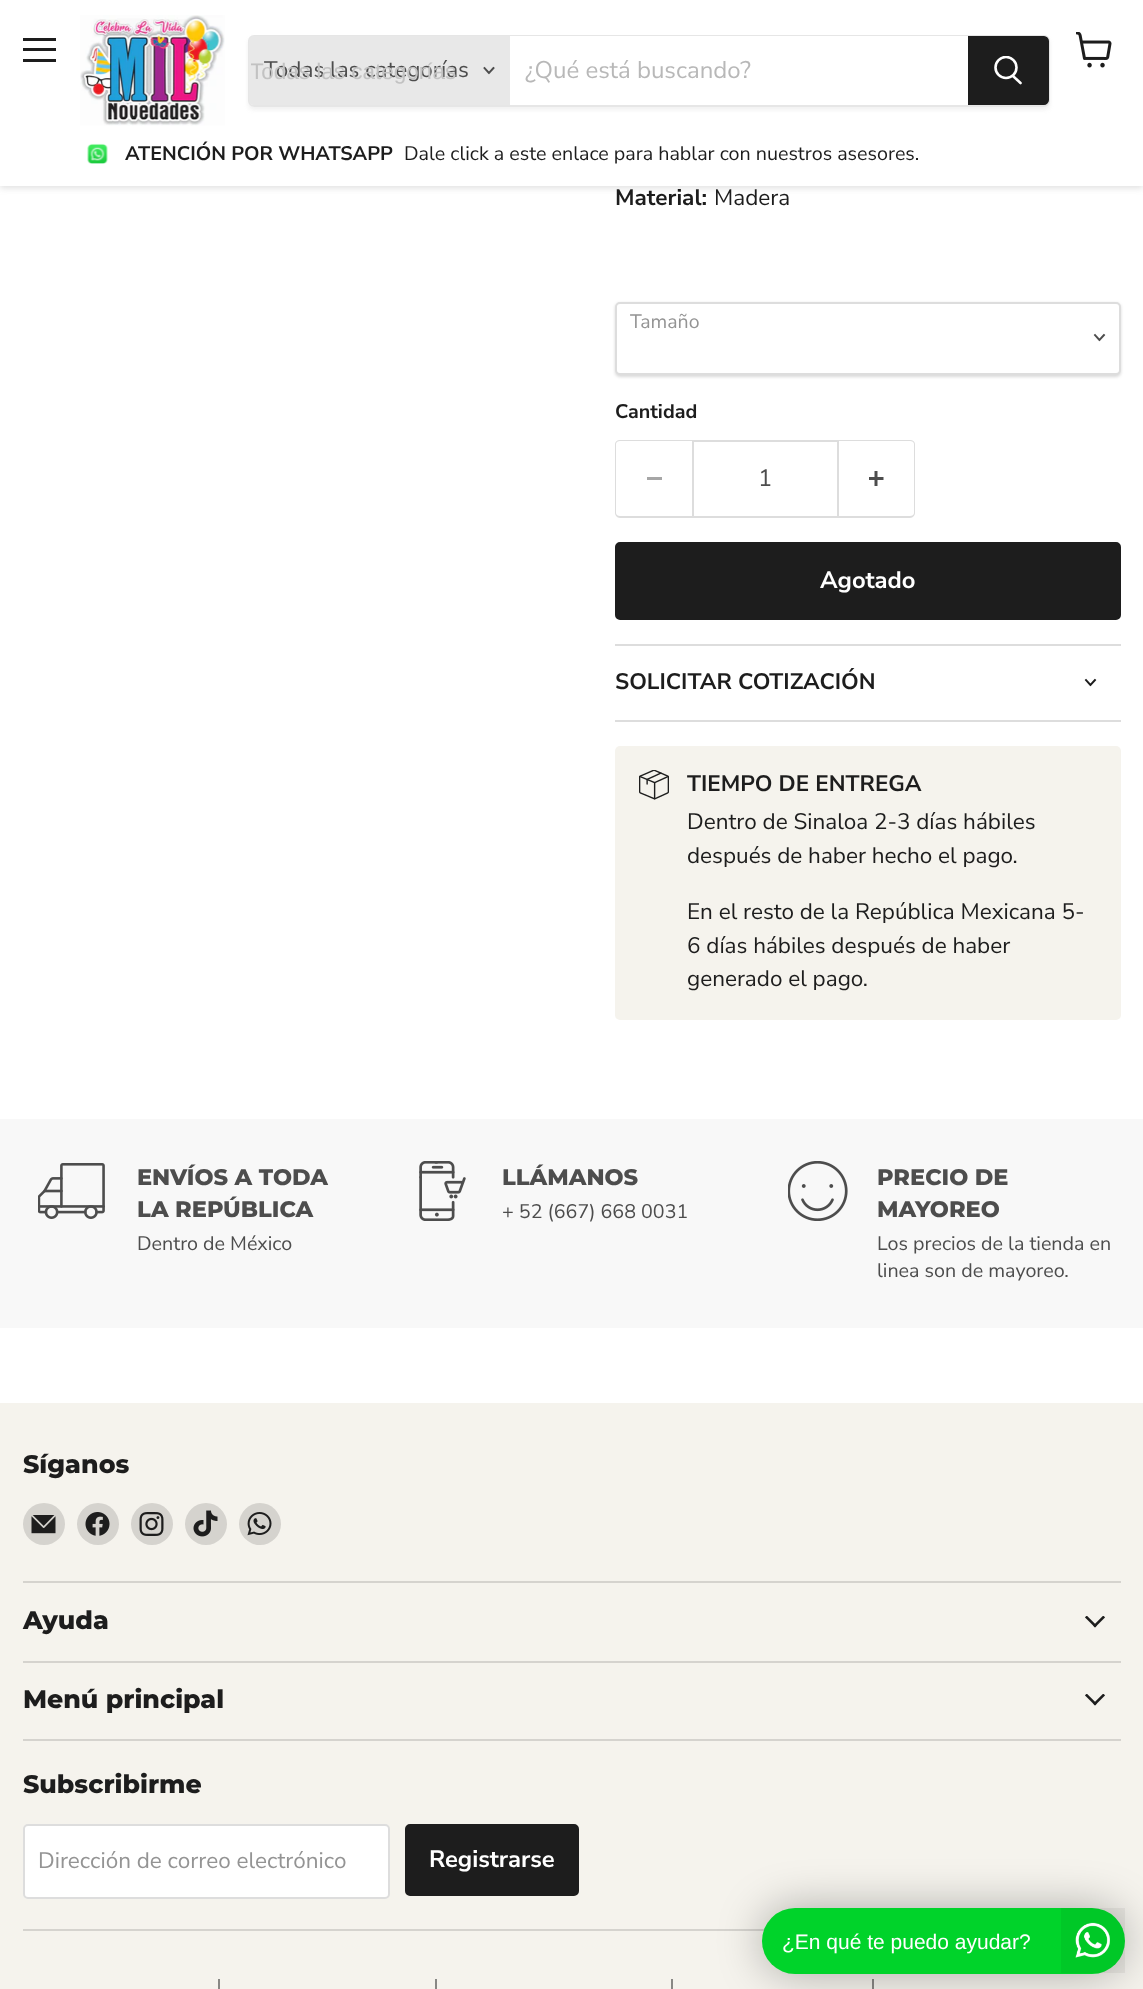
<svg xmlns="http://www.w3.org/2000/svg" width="1143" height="1989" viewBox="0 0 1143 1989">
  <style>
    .t1 { font: 22.5px Nunito Sans; fill: #4d4d4d; }
    .t2 { font: 22.5px Liberation Sans; fill: #c2c2c2; }
    .t3 { font: 24px Nunito Sans; fill: #b8b8b8; }
    .t4 { font: bold 19.7px Nunito Sans; fill: #1d1d1d; }
    .t5 { font: 19.7px Nunito Sans; fill: #1d1d1d; }
    .t6 { font: bold 22.5px Nunito Sans; fill: #1d1d1d; }
    .t7 { font: 22.5px Nunito Sans; fill: #1d1d1d; }
    .t8 { font: 19.5px Nunito Sans; fill: #949494; }
    .t9 { font: 23.75px Nunito Sans; fill: #4d4d4d; }
    .t10 { font: bold 23.75px Nunito Sans; fill: #fff; }
    .t11 { font: 800 22.5px Montserrat; fill: #4d4d4d; }
    .t12 { font: 19.7px Nunito Sans; fill: #4d4d4d; }
    .t13 { font: 800 25.25px Montserrat; fill: #1d1d1d; }
    .t14 { font: 22.5px Nunito Sans; fill: #949494; }
    .t15 { font: 21px Liberation Sans; fill: #fff; }
  </style>
  <defs>
    <clipPath id="clip1"><path d="M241 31H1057V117H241ZM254 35H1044C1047.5 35 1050 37.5 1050 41V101C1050 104.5 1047.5 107 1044 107H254C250.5 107 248 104.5 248 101V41C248 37.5 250.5 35 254 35Z" clip-rule="evenodd"/></clipPath>
    <clipPath id="clip2"><rect x="251" y="57" width="258" height="27"/></clipPath>
    <clipPath id="clip3"><rect x="993" y="56" width="30" height="31"/></clipPath>
  </defs>
  <rect width="100%" height="100%" fill="#fff"/>
  <rect x="0" y="2" width="1143" height="186" fill="#80808040" filter="blur(3px)"/>
  <rect x="0" y="0" width="1143" height="186" fill="#fff"/>
  <rect x="23" y="38" width="33" height="3" fill="#1d1d1d"/>
  <rect x="23" y="48" width="33" height="3" fill="#1d1d1d"/>
  <rect x="23" y="59" width="33" height="3" fill="#1d1d1d"/>
  <image x="1076" y="32" width="36" height="36" href="images/1.png"/>
  <image x="80" y="15" width="145" height="111" href="images/2.png"/>
  <g clip-path="url(#clip1)">
    <rect x="248" y="38" width="802" height="72" rx="6" fill="#8080801c" filter="blur(2px)"/>
  </g>
  <rect x="249" y="36" width="800" height="70" rx="5" fill="none" stroke="#80808033" stroke-width="2"/>
  <path d="M254 36H510V105H254C251 105 249 103 249 100V41C249 38 251 36 254 36Z" fill="#e8e8e8"/>
  <text x="264" y="77" class="t1">Todas las categorías</text>
  <g clip-path="url(#clip2)">
    <text x="250" y="79" class="t2">Todas las categorías</text>
  </g>
  <path d="M489 73L493.5 68M489 73L484.5 68" fill="none" stroke="#4d4d4d" stroke-width="1.9" stroke-linecap="square"/>
  <rect x="510" y="36" width="458" height="1" fill="#fff"/>
  <text x="525" y="78" class="t3">¿Qué está buscando?</text>
  <path d="M969 37H1044C1046 37 1048 39 1048 41V100C1048 102 1046 104 1044 104H969Z" fill="#1d1d1d" stroke="#1d1d1d" stroke-width="2"/>
  <path d="M1020.5 83L1013 76" fill="none" stroke="#fff" stroke-width="2.6" stroke-linecap="round"/>
  <g clip-path="url(#clip3)">
    <circle cx="1006" cy="67.5" r="10.5" fill="none" stroke="#fff" stroke-width="2.6"/>
  </g>
  <image x="87" y="143" width="21" height="21" href="images/3.png"/>
  <text x="125" y="160" class="t4">ATENCIÓN POR WHATSAPP</text>
  <text x="404" y="160" class="t5">Dale click a este enlace para hablar con nuestros asesores.</text>
  <text x="615" y="205" class="t6">Material:</text>
  <text x="714" y="205" class="t7">Madera</text>
  <rect x="615" y="303" width="506" height="74" rx="5" fill="#00000026" filter="blur(1.5px)"/>
  <rect x="616" y="303" width="504" height="71" rx="4" fill="#fff" stroke="#ddd" stroke-width="2"/>
  <path d="M1099.5 340L1104 335M1099.5 340L1095 335" fill="none" stroke="#4d4d4d" stroke-width="1.9" stroke-linecap="square"/>
  <text x="630" y="328" class="t8">Tamaño</text>
  <text x="615" y="418" class="t4">Cantidad</text>
  <path d="M620 440H692V518H620C617 518 615 515 615 513V444C615 442 617 440 620 440ZM620 441H692V516H620C618 516 616 515 616 513V444C616 442 618 441 620 441Z" fill="#ddd" fill-rule="evenodd"/>
  <rect x="647" y="477" width="15" height="3" fill="#a6a6a6"/>
  <rect x="693" y="441" width="145" height="76" fill="none" stroke="#ddd" stroke-width="2"/>
  <text x="758" y="486" class="t9">1</text>
  <path d="M838 440H910C913 440 915 442 915 444V513C915 515 913 518 910 518H838ZM838 441H910C912 441 914 442 914 444V513C914 515 912 516 910 516H838Z" fill="#ddd" fill-rule="evenodd"/>
  <image x="869" y="471" width="15" height="15" href="images/4.png"/>
  <rect x="616" y="543" width="504" height="76" rx="4" fill="#1d1d1d" stroke="#1d1d1d" stroke-width="2"/>
  <text x="820" y="588" class="t10">Agotado</text>
  <rect x="615" y="644" width="506" height="2" fill="#ddd"/>
  <rect x="615" y="720" width="506" height="2" fill="#ddd"/>
  <text x="615" y="689" class="t6">SOLICITAR COTIZACIÓN</text>
  <path d="M1090.5 685L1095 680M1090.5 685L1086 680" fill="none" stroke="#1d1d1d" stroke-width="1.9" stroke-linecap="square"/>
  <rect x="615" y="746" width="506" height="274" rx="5" fill="#f5f3ed"/>
  <image x="639" y="770" width="30" height="30" href="images/5.png"/>
  <text x="687" y="791" class="t6">TIEMPO DE ENTREGA</text>
  <text x="687" y="829" class="t7">Dentro de Sinaloa 2-3 días hábiles</text>
  <text x="687" y="863" class="t7">después de haber hecho el pago.</text>
  <text x="687" y="919" class="t7">En el resto de la República Mexicana 5-</text>
  <text x="687" y="953" class="t7">6 días hábiles después de haber</text>
  <text x="687" y="986" class="t7">generado el pago.</text>
  <rect x="0" y="1119" width="1143" height="209" fill="#f8f8f8"/>
  <image x="38" y="1163" width="67" height="56" href="images/6.png"/>
  <text x="137" y="1185" class="t11">ENVÍOS A TODA</text>
  <text x="137" y="1217" class="t11">LA REPÚBLICA</text>
  <text x="137" y="1250" class="t12">Dentro de México</text>
  <image x="419" y="1161" width="47" height="60" href="images/7.png"/>
  <text x="502" y="1185" class="t11">LLÁMANOS</text>
  <text x="502" y="1218" class="t12">+ 52 (667) 668 0031</text>
  <image x="788" y="1161" width="60" height="60" href="images/8.png"/>
  <text x="877" y="1185" class="t11">PRECIO DE</text>
  <text x="877" y="1217" class="t11">MAYOREO</text>
  <text x="877" y="1250" class="t12">Los precios de la tienda en</text>
  <text x="877" y="1277" class="t12">linea son de mayoreo.</text>
  <rect x="0" y="1403" width="1143" height="586" fill="#f5f3ed"/>
  <rect x="23" y="1581" width="1098" height="2" fill="#d5d3ce"/>
  <text x="23" y="1473" class="t13">Síganos</text>
  <circle cx="44" cy="1524" r="21" fill="#d5d3ce"/>
  <image x="31" y="1515" width="25" height="19" href="images/9.png"/>
  <circle cx="98" cy="1524" r="21" fill="#d5d3ce"/>
  <image x="85" y="1512" width="25" height="24" href="images/10.png"/>
  <circle cx="152" cy="1524" r="21" fill="#d5d3ce"/>
  <image x="139" y="1512" width="25" height="24" href="images/11.png"/>
  <circle cx="206" cy="1524" r="21" fill="#d5d3ce"/>
  <image x="193" y="1510" width="25" height="27" href="images/12.png"/>
  <circle cx="260" cy="1524" r="21" fill="#d5d3ce"/>
  <image x="247" y="1512" width="25" height="24" href="images/13.png"/>
  <rect x="23" y="1661" width="1098" height="2" fill="#d5d3ce"/>
  <text x="23" y="1629" class="t13">Ayuda</text>
  <image x="1085" y="1616" width="20" height="12" href="images/14.png"/>
  <rect x="23" y="1739" width="1098" height="2" fill="#d5d3ce"/>
  <text x="23" y="1708" class="t13">Menú principal</text>
  <image x="1085" y="1694" width="20" height="12" href="images/14.png"/>
  <rect x="23" y="1929" width="742" height="2" fill="#d5d3ce"/>
  <text x="23" y="1793" class="t13">Subscribirme</text>
  <rect x="24" y="1825" width="365" height="73" rx="4" fill="#fff" stroke="#ddd" stroke-width="2"/>
  <text x="38" y="1868" class="t14">Dirección de correo electrónico</text>
  <rect x="406" y="1825" width="172" height="70" rx="4" fill="#1d1d1d" stroke="#1d1d1d" stroke-width="2"/>
  <text x="429" y="1867" class="t10">Registrarse</text>
  <rect x="218" y="1979" width="2" height="10" fill="#898885"/>
  <rect x="435" y="1979" width="2" height="10" fill="#898885"/>
  <rect x="671" y="1979" width="2" height="10" fill="#898885"/>
  <rect x="872" y="1979" width="2" height="10" fill="#898885"/>
  <rect x="762" y="1908" width="363" height="66" rx="33" fill="#0000004d" filter="blur(22.5px)"/>
  <rect x="762" y="1908" width="363" height="66" rx="33" fill="#00d32a"/>
  <text x="782" y="1949" class="t15">¿En qué te puedo ayudar?</text>
  <rect x="1061" y="1908" width="64" height="65" fill="#0000000d"/>
  <image x="1075" y="1922" width="35" height="36" href="images/15.png"/>
</svg>
